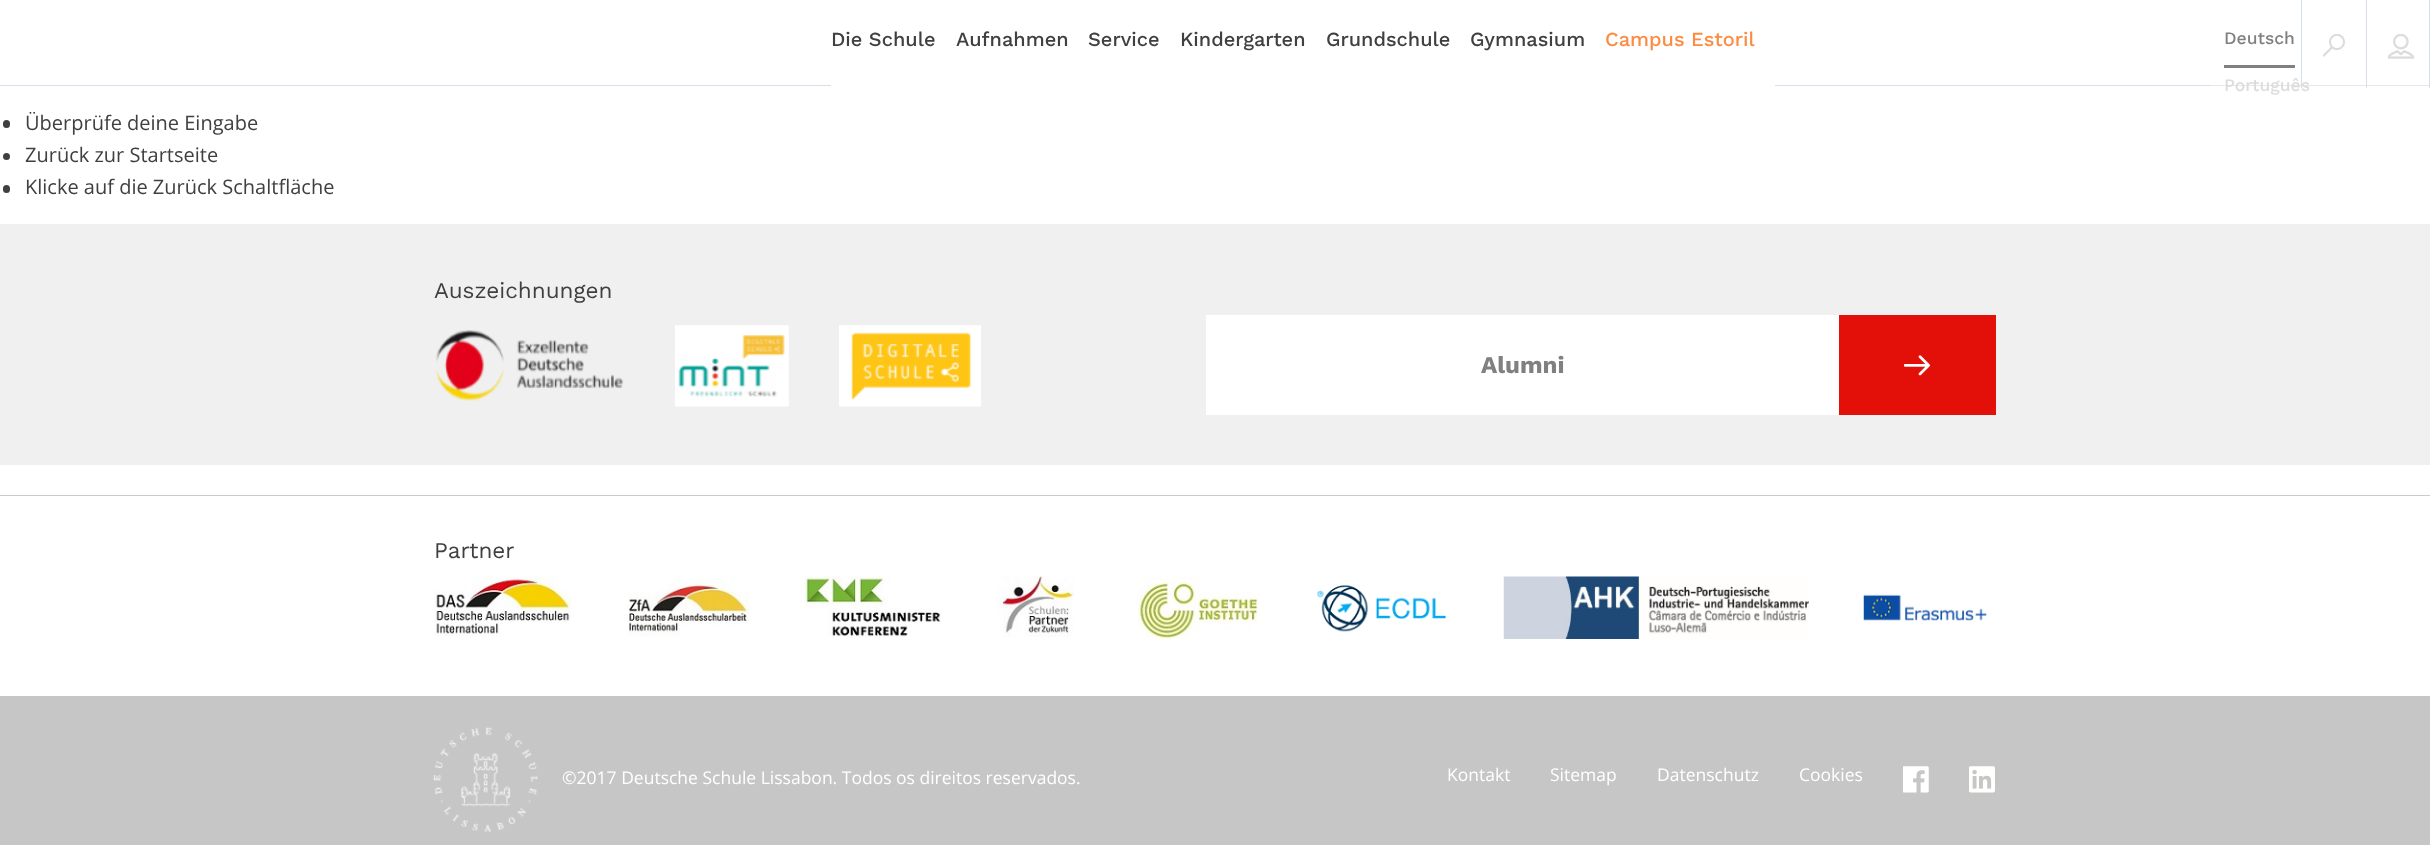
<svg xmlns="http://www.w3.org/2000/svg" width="2430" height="845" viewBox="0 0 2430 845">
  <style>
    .t1 { font: 500 20px Work Sans; fill: #404040; }
    .t2 { font: 500 20px Work Sans; fill: #fb8c42; }
    .t3 { font: 500 17.5px Work Sans; fill: #808080; }
    .t4 { font: 500 17.5px Work Sans; fill: #dcdcdc; }
    .t5 { font: 20px Open Sans; fill: #404040; }
    .t6 { font: 22.5px Work Sans; fill: #404040; }
    .t7 { font: bold 24px Work Sans; fill: #808080; }
    .t8 { font: 17.5px Open Sans; fill: #fff; }
  </style>
  <rect width="100%" height="100%" fill="#fff"/>
  <rect x="0" y="85" width="2210" height="1" fill="#d6dfe8"/>
  <rect x="831" y="85" width="944" height="1" fill="#fff"/>
  <text x="831" y="46" class="t1">Die Schule</text>
  <text x="956" y="46" class="t1">Aufnahmen</text>
  <text x="1088" y="46" class="t1">Service</text>
  <text x="1180" y="46" class="t1">Kindergarten</text>
  <text x="1326" y="46" class="t1">Grundschule</text>
  <text x="1470" y="46" class="t1">Gymnasium</text>
  <text x="1605" y="46" class="t2">Campus Estoril</text>
  <rect x="2210" y="85" width="220" height="1" fill="#e5e8ef"/>
  <rect x="2224" y="65" width="71" height="3" fill="#808080"/>
  <text x="2224" y="44" class="t3">Deutsch</text>
  <text x="2224" y="91" class="t4">Português</text>
  <rect x="2301" y="0" width="1" height="88" fill="#d6dfe8"/>
  <image x="2323" y="34" width="22" height="23" href="images/1.png"/>
  <rect x="2429" y="0" width="1" height="88" fill="#d6dfe8"/>
  <rect x="2366" y="0" width="1" height="88" fill="#d6dfe8"/>
  <image x="2388" y="34" width="27" height="25" href="images/2.png"/>
  <rect x="3" y="120" width="7" height="8" rx="3.5" fill="#404040"/>
  <text x="25" y="130" class="t5">Überprüfe deine Eingabe</text>
  <circle cx="6.5" cy="156.5" r="3.5" fill="#404040"/>
  <text x="25" y="162" class="t5">Zurück zur Startseite</text>
  <rect x="3" y="185" width="7" height="8" rx="3.5" fill="#404040"/>
  <text x="25" y="194" class="t5">Klicke auf die Zurück Schaltfläche</text>
  <rect x="0" y="224" width="2430" height="241" fill="#f0f0f0"/>
  <text x="434" y="298" class="t6">Auszeichnungen</text>
  <image x="435" y="330" width="189" height="71" href="images/3.png"/>
  <image x="675" y="325" width="114" height="82" href="images/4.png"/>
  <image x="839" y="325" width="142" height="82" href="images/5.png"/>
  <rect x="1206" y="315" width="633" height="100" fill="#fff"/>
  <text x="1481" y="373" class="t7">Alumni</text>
  <rect x="1839" y="315" width="157" height="100" fill="#e31009"/>
  <image x="1904" y="355" width="26" height="21" href="images/6.png"/>
  <rect x="0" y="495" width="2430" height="1" fill="#cacaca"/>
  <text x="434" y="558" class="t6">Partner</text>
  <image x="434" y="576" width="137" height="61" href="images/7.png"/>
  <image x="627" y="577" width="123" height="60" href="images/8.png"/>
  <image x="805" y="576" width="136" height="61" href="images/9.png"/>
  <image x="997" y="576" width="77" height="61" href="images/10.png"/>
  <image x="1137" y="576" width="122" height="63" href="images/11.png"/>
  <image x="1316" y="585" width="130" height="47" href="images/12.png"/>
  <image x="1503" y="576" width="306" height="63" href="images/13.png"/>
  <image x="1863" y="594" width="124" height="27" href="images/14.png"/>
  <rect x="0" y="696" width="2430" height="149" fill="#c6c6c6"/>
  <image x="433" y="727" width="105" height="105" href="images/15.png"/>
  <text x="562" y="784" class="t8">©2017 Deutsche Schule Lissabon. Todos os direitos reservados.</text>
  <text x="1447" y="781" class="t8">Kontakt</text>
  <text x="1550" y="781" class="t8">Sitemap</text>
  <text x="1657" y="781" class="t8">Datenschutz</text>
  <text x="1799" y="781" class="t8">Cookies</text>
  <image x="1903" y="766" width="26" height="27" href="images/16.png"/>
  <image x="1969" y="766" width="26" height="27" href="images/17.png"/>
</svg>
